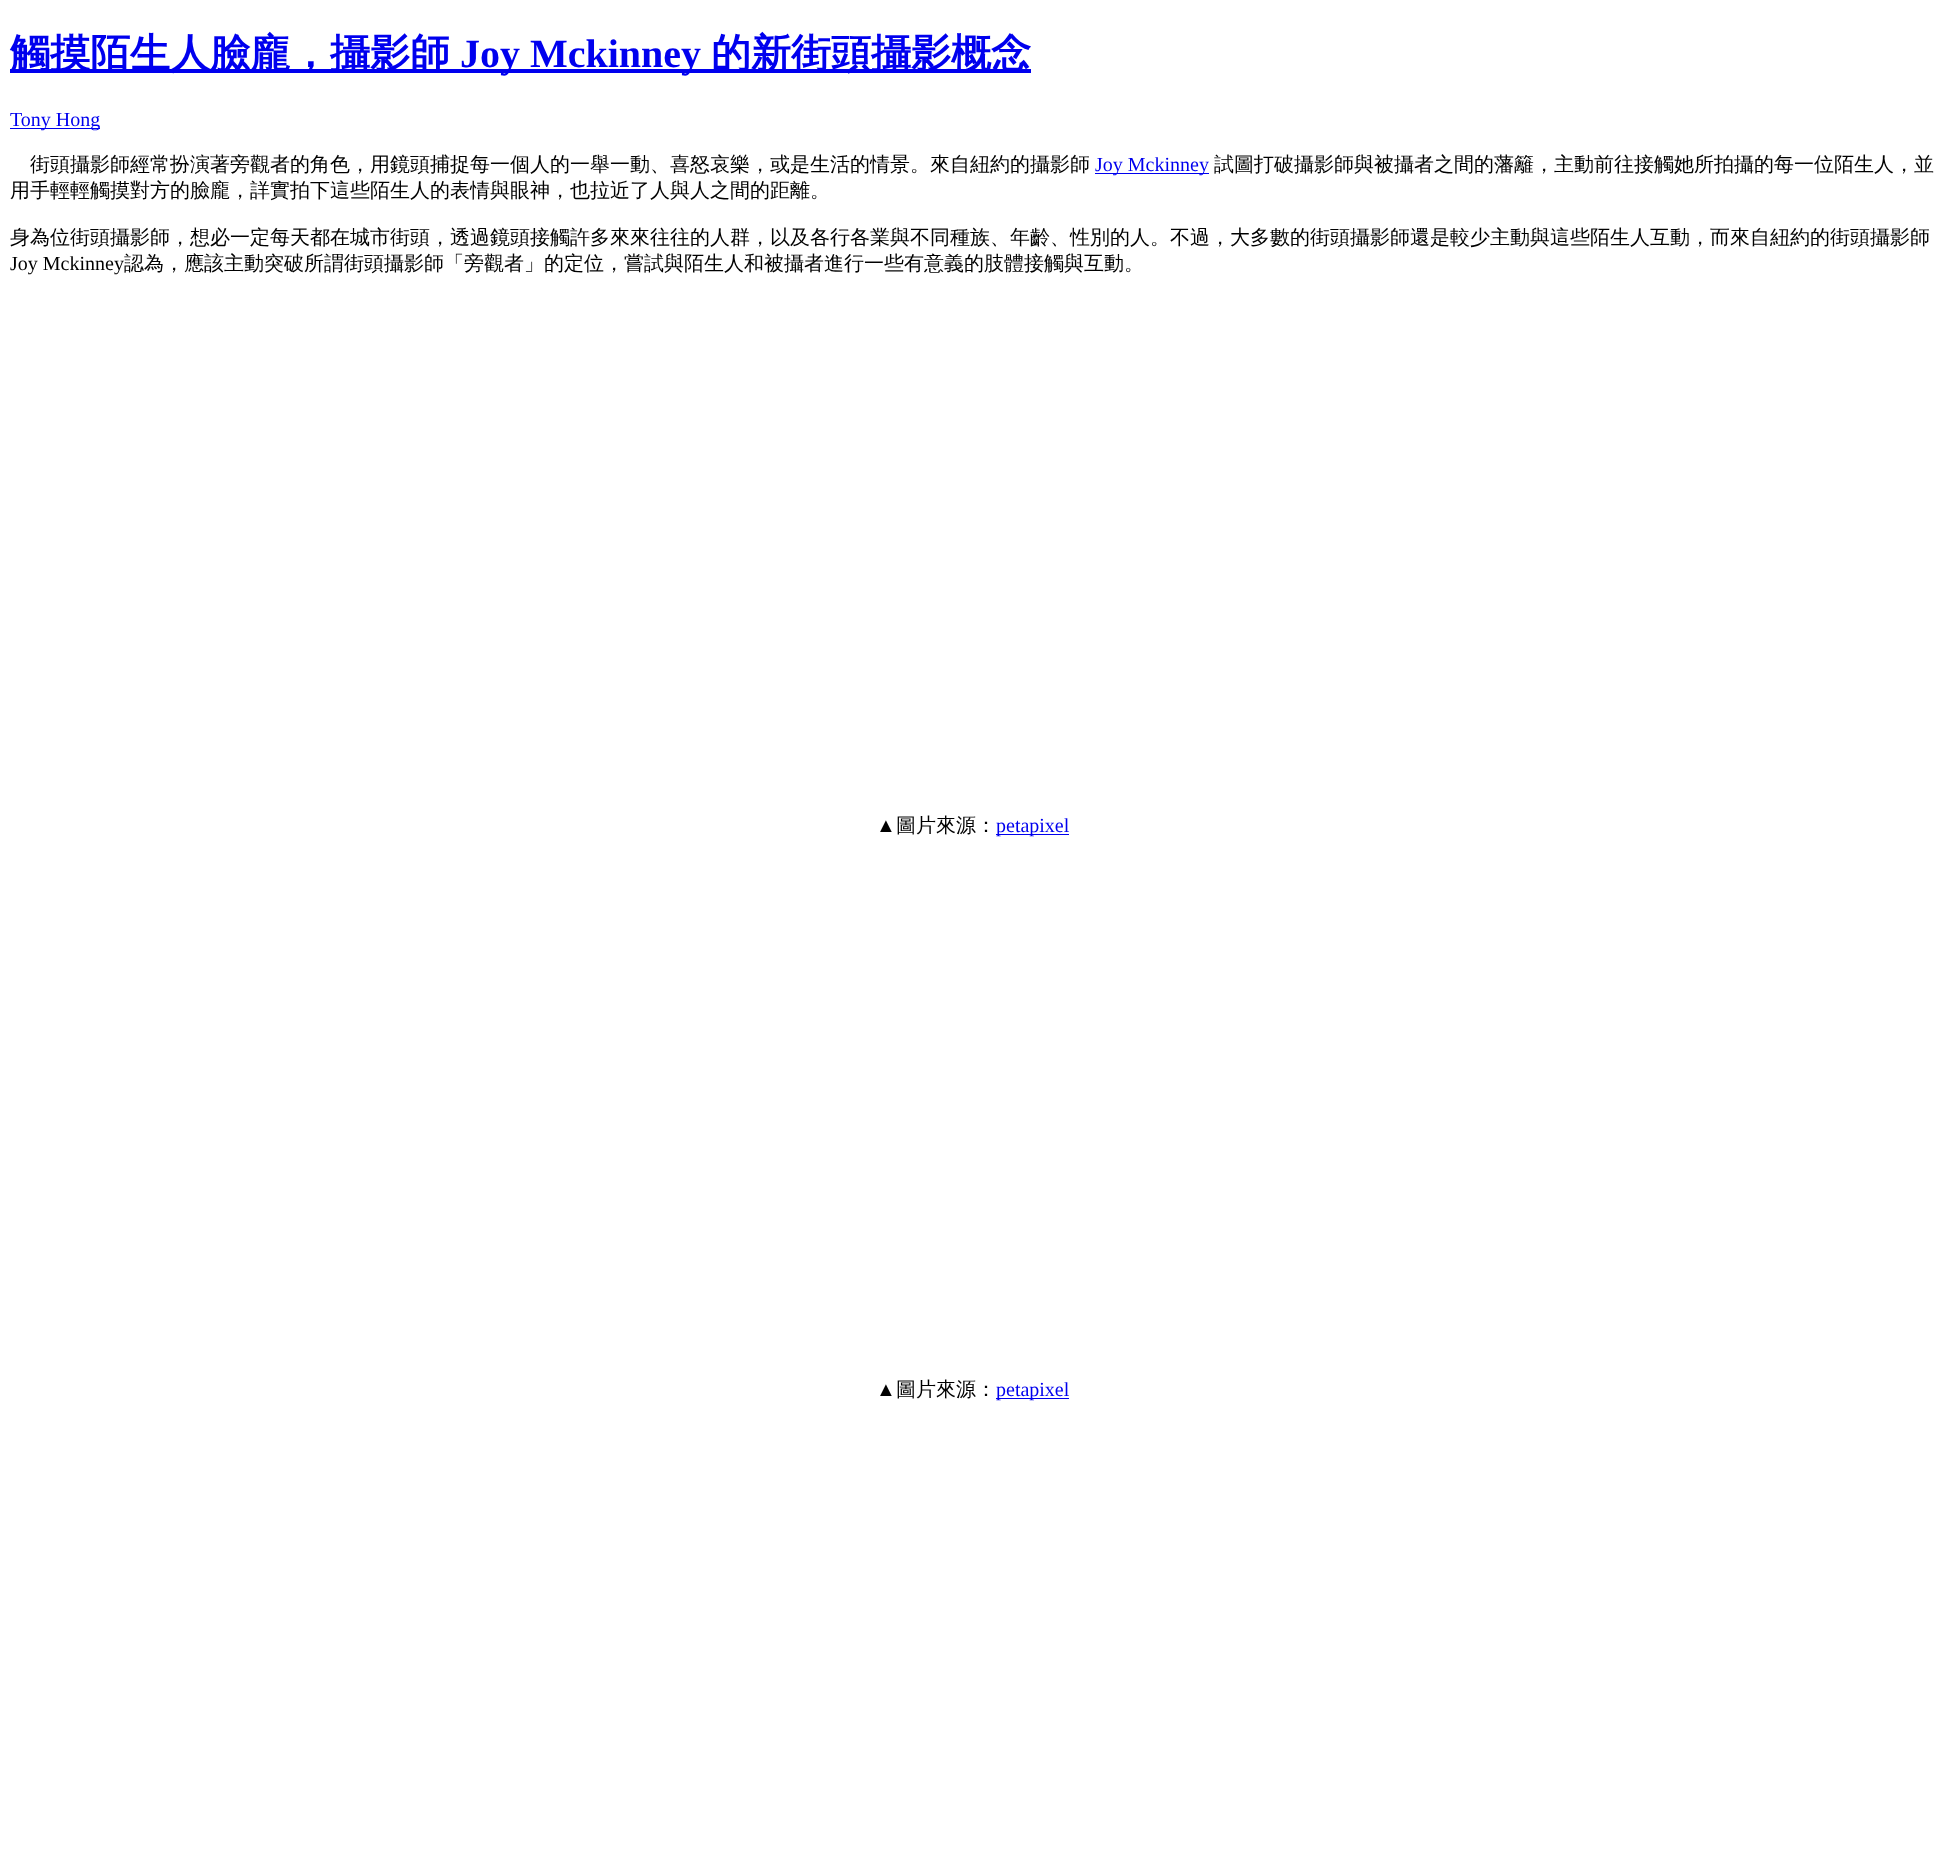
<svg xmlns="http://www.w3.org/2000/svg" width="1945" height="1857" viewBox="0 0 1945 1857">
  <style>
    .t1 { font: bold 40px WenQuanYi Zen Hei; fill: #00e; }
    .t2 { font: bold 40px Liberation Serif; fill: #00e; }
    .t3 { font: 20px Liberation Serif; fill: #00e; }
    .t4 { font: 500 20px WenQuanYi Zen Hei; fill: #000; }
    .t5 { font: 20px Liberation Serif; fill: #000; }
  </style>
  <rect width="100%" height="100%" fill="#fff"/>
  <rect x="10" y="69" width="1021" height="4" fill="#00e"/>
  <text x="10" y="67" class="t1">觸摸陌生人臉龐，攝影師</text>
  <text x="460" y="67" class="t2">Joy Mckinney</text>
  <text x="711" y="67" class="t1">的新街頭攝影概念</text>
  <rect x="10" y="128" width="90" height="1" fill="#00e"/>
  <text x="10" y="126" class="t3">Tony Hong</text>
  <text x="30" y="171" class="t4">街頭攝影師經常扮演著旁觀者的角色，用鏡頭捕捉每一個人的一舉一動、喜怒哀樂，或是生活的情景。來自紐約的攝影師</text>
  <rect x="1095" y="173" width="114" height="1" fill="#00e"/>
  <text x="1095" y="171" class="t3">Joy Mckinney</text>
  <text x="1214" y="171" class="t4">試圖打破攝影師與被攝者之間的藩籬，主動前往接觸她所拍攝的每一位陌生人，並</text>
  <text x="10" y="197" class="t4">用手輕輕觸摸對方的臉龐，詳實拍下這些陌生人的表情與眼神，也拉近了人與人之間的距離。</text>
  <text x="10" y="244" class="t4">身為位街頭攝影師，想必一定每天都在城市街頭，透過鏡頭接觸許多來來往往的人群，以及各行各業與不同種族、年齡、性別的人。不過，大多數的街頭攝影師還是較少主動與這些陌生人互動，而來自紐約的街頭攝影師</text>
  <text x="10" y="270" class="t5">Joy Mckinney</text>
  <text x="124" y="270" class="t4">認為，應該主動突破所謂街頭攝影師「旁觀者」的定位，嘗試與陌生人和被攝者進行一些有意義的肢體接觸與互動。</text>
  <text x="876" y="832" class="t5">▲</text>
  <text x="896" y="832" class="t4">圖片來源：</text>
  <rect x="996" y="834" width="73" height="1" fill="#00e"/>
  <text x="996" y="832" class="t3">petapixel</text>
  <text x="876" y="1396" class="t5">▲</text>
  <text x="896" y="1396" class="t4">圖片來源：</text>
  <rect x="996" y="1398" width="73" height="1" fill="#00e"/>
  <text x="996" y="1396" class="t3">petapixel</text>
</svg>
